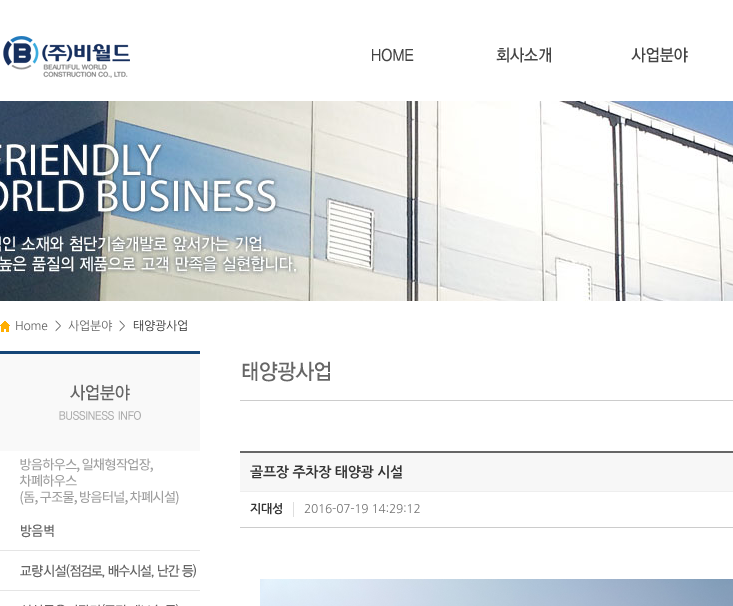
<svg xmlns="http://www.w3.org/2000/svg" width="733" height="606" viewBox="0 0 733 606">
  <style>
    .t1 { font: 12px NanumGothic; letter-spacing: -0.25px; fill: #666; }
    .t2 { font: 12px NanumGothic; letter-spacing: -0.25px; fill: #333; }
    .t3 { font: bold 14px NanumGothic; letter-spacing: -0.25px; fill: #333; }
    .t4 { font: bold 12px NanumGothic; letter-spacing: -0.25px; fill: #333; }
    .t5 { font: 12px NanumGothic; letter-spacing: -0.25px; fill: #767676; }
  </style>
  <rect width="100%" height="100%" fill="#fff"/>
  <image x="3" y="36" width="127" height="42" href="images/1.png"/>
  <image x="372" y="48" width="42" height="14" href="images/2.png"/>
  <image x="496" y="47" width="55" height="16" href="images/3.png"/>
  <image x="631" y="47" width="57" height="16" href="images/4.png"/>
  <image x="0" y="101" width="733" height="200" href="images/5.png"/>
  <image x="0" y="321" width="10" height="11" href="images/6.png"/>
  <text x="15" y="330" class="t1">Home</text>
  <text x="55" y="330" class="t1">&gt;</text>
  <text x="68" y="330" class="t1">사업분야</text>
  <text x="119" y="330" class="t1">&gt;</text>
  <text x="133" y="330" class="t2">태양광사업</text>
  <image x="0" y="351" width="200" height="100" href="images/7.png"/>
  <image x="19" y="458" width="160" height="47" href="images/8.png"/>
  <image x="0" y="524" width="200" height="27" href="images/9.png"/>
  <image x="0" y="564" width="200" height="27" href="images/10.png"/>
  <image x="23" y="604" width="155" height="2" href="images/11.png"/>
  <rect x="240" y="400" width="493" height="1" fill="#ccc"/>
  <image x="242" y="361" width="88" height="21" href="images/12.png"/>
  <rect x="240" y="451" width="493" height="2" fill="#666"/>
  <rect x="240" y="453" width="493" height="38" fill="#f7f7f7"/>
  <rect x="240" y="491" width="493" height="1" fill="#eee"/>
  <text x="250" y="477" class="t3">골프장 주차장 태양광 시설</text>
  <rect x="240" y="527" width="493" height="1" fill="#ccc"/>
  <text x="250" y="513" class="t4">지대성</text>
  <rect x="293" y="502" width="1" height="15" fill="#dedede"/>
  <text x="304" y="513" class="t5">2016-07-19 14:29:12</text>
  <image x="260" y="579" width="473" height="27" href="images/13.png"/>
</svg>
